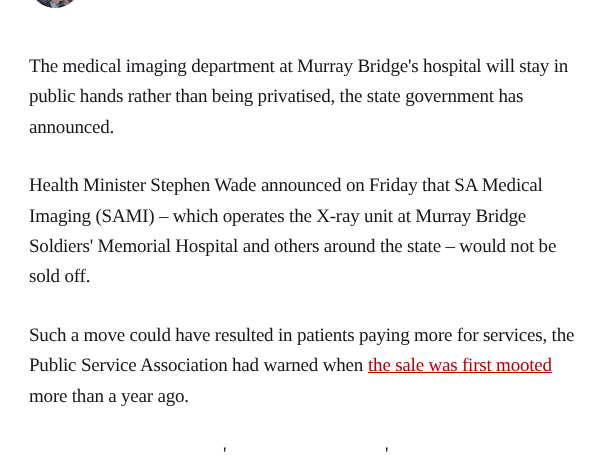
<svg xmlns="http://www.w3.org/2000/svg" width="607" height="455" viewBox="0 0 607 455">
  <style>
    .t1 { font: 19px Liberation Serif; letter-spacing: -0.2px; fill: #15171a; }
    .t2 { font: 19px Liberation Serif; letter-spacing: -0.2px; fill: #b70000; }
  </style>
  <rect width="100%" height="100%" fill="#fff"/>
  <rect x="28.5" y="-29.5" width="53" height="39" rx="26.5" fill="#e6e6e6" stroke="#fff" stroke-width="3"/>
  <image x="36" y="0" width="38" height="8" href="images/1.png"/>
  <text x="29" y="72" class="t1">The medical imaging department at Murray Bridge's hospital will stay in</text>
  <text x="29" y="102" class="t1">public hands rather than being privatised, the state government has</text>
  <text x="29" y="133" class="t1">announced.</text>
  <text x="29" y="191" class="t1">Health Minister Stephen Wade announced on Friday that SA Medical</text>
  <text x="29" y="222" class="t1">Imaging (SAMI) – which operates the X-ray unit at Murray Bridge</text>
  <text x="29" y="252" class="t1">Soldiers' Memorial Hospital and others around the state – would not be</text>
  <text x="29" y="282" class="t1">sold off.</text>
  <text x="29" y="341" class="t1">Such a move could have resulted in patients paying more for services, the</text>
  <text x="29" y="371" class="t1">Public Service Association had warned when</text>
  <text x="368" y="371" class="t2">the sale was first mooted</text>
  <rect x="368" y="372" width="184" height="1" fill="#b70000"/>
  <text x="29" y="402" class="t1">more than a year ago.</text>
  <text x="223" y="460" class="t1">'</text>
  <text x="385" y="460" class="t1">'</text>
</svg>
